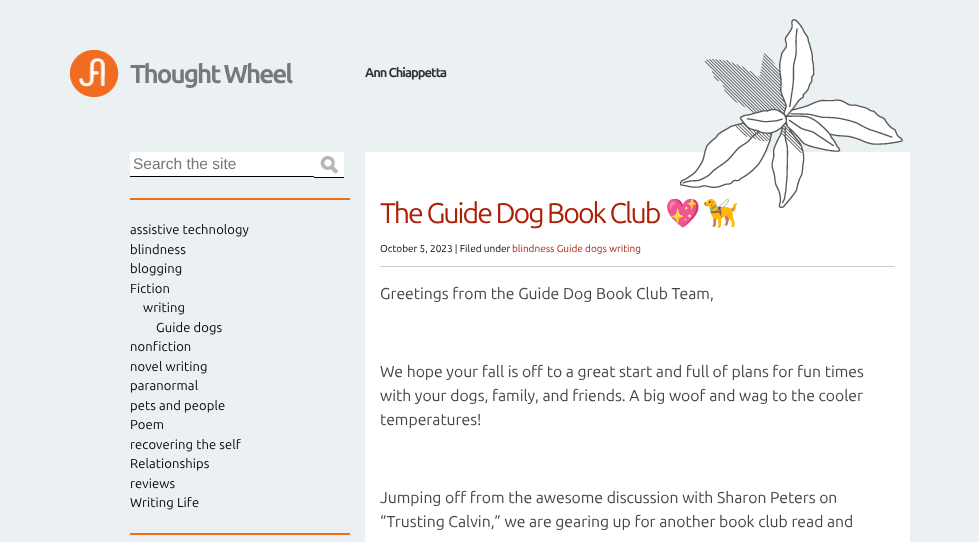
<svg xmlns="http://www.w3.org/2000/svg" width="979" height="542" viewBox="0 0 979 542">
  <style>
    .t1 { font: bold 26px Ubuntu; letter-spacing: -2px; fill: #76797a; }
    .t2 { font: bold 13px Ubuntu; letter-spacing: -1px; fill: #2f3031; }
    .t3 { font: 15.5px Liberation Sans; fill: #76797a; }
    .t4 { font: 13px Ubuntu; letter-spacing: 0.1px; fill: #000; }
    .t5 { font: 28.5px Noto Color Emoji; letter-spacing: -2px; fill: #ac1e06; }
    .t6 { font: 28.5px Ubuntu; letter-spacing: -2px; fill: #ac1e06; }
    .t7 { font: 10px Ubuntu; fill: #000; }
    .t8 { font: 10px Ubuntu; fill: #ac1e06; }
    .t9 { font: 15.75px Ubuntu; fill: #444; }
  </style>
  <rect width="100%" height="100%" fill="#ebf1f3"/>
  <image x="70" y="50" width="49" height="47" href="images/1.png"/>
  <text x="130" y="83" class="t1">Thought Wheel</text>
  <text x="365" y="77" class="t2">Ann Chiappetta</text>
  <rect x="130" y="198" width="220" height="2" fill="#f16c20"/>
  <rect x="130" y="152" width="184" height="24" fill="#fff"/>
  <rect x="130" y="176" width="184" height="1" fill="#000"/>
  <text x="133" y="169" class="t3">Search the site</text>
  <rect x="314" y="152" width="30" height="25" fill="#fff"/>
  <image x="320" y="156" width="18" height="18" href="images/2.png"/>
  <rect x="314" y="177" width="30" height="1" fill="#000"/>
  <rect x="130" y="533" width="220" height="2" fill="#f16c20"/>
  <text x="130" y="234" class="t4">assistive technology</text>
  <text x="130" y="254" class="t4">blindness</text>
  <text x="130" y="273" class="t4">blogging</text>
  <text x="130" y="293" class="t4">Fiction</text>
  <text x="143" y="312" class="t4">writing</text>
  <text x="156" y="332" class="t4">Guide dogs</text>
  <text x="130" y="351" class="t4">nonfiction</text>
  <text x="130" y="371" class="t4">novel writing</text>
  <text x="130" y="390" class="t4">paranormal</text>
  <text x="130" y="410" class="t4">pets and people</text>
  <text x="130" y="429" class="t4">Poem</text>
  <text x="130" y="449" class="t4">recovering the self</text>
  <text x="130" y="468" class="t4">Relationships</text>
  <text x="130" y="488" class="t4">reviews</text>
  <text x="130" y="507" class="t4">Writing Life</text>
  <rect x="365" y="152" width="545" height="390" fill="#fff"/>
  <text x="665" y="223" class="t5">💖</text>
  <text x="703" y="223" class="t5">🦮</text>
  <image x="680" y="19" width="223" height="189" href="images/3.png"/>
  <rect x="380" y="266" width="515" height="1" fill="#ccc"/>
  <text x="380" y="223" class="t6">The Guide Dog Book Club</text>
  <text x="380" y="252" class="t7">October 5, 2023 | Filed under</text>
  <text x="512" y="252" class="t8">blindness Guide dogs writing</text>
  <text x="380" y="299" class="t9">Greetings from the Guide Dog Book Club Team,</text>
  <text x="380" y="377" class="t9">We hope your fall is off to a great start and full of plans for fun times</text>
  <text x="380" y="401" class="t9">with your dogs, family, and friends. A big woof and wag to the cooler</text>
  <text x="380" y="425" class="t9">temperatures!</text>
  <text x="380" y="503" class="t9">Jumping off from the awesome discussion with Sharon Peters on</text>
  <text x="380" y="527" class="t9">“Trusting Calvin,” we are gearing up for another book club read and</text>
</svg>
